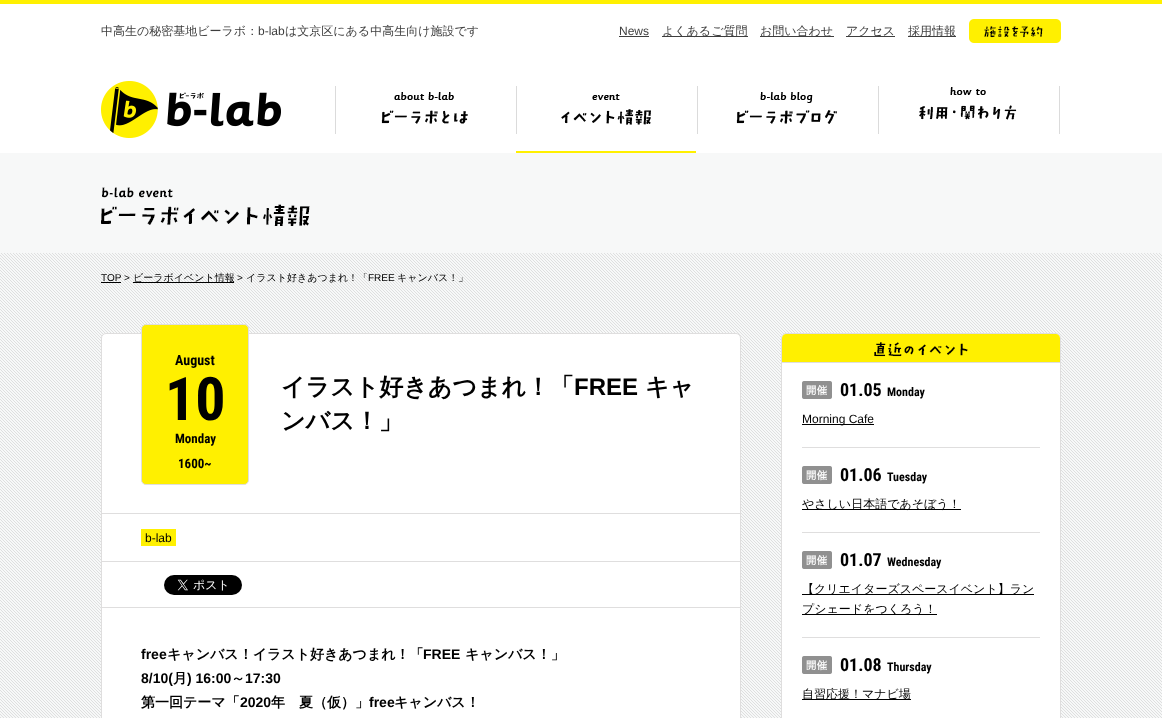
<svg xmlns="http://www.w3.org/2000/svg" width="1162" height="718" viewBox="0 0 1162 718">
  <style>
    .t1 { font: 500 12px WenQuanYi Zen Hei; fill: #3e3e3e; }
    .t2 { font: 12px Liberation Sans; fill: #3e3e3e; }
    .t3 { font: 10px Liberation Sans; fill: #000; }
    .t4 { font: 500 10px WenQuanYi Zen Hei; fill: #000; }
    .t5 { font: bold 14px Roboto Condensed; fill: #000; }
    .t6 { font: bold 60px Roboto Condensed; fill: #000; }
    .t7 { font: bold 13px Roboto Condensed; fill: #000; }
    .t8 { font: bold 24px WenQuanYi Zen Hei; fill: #000; }
    .t9 { font: bold 24px Liberation Sans; fill: #000; }
    .t10 { font: 12px Liberation Sans; fill: #000; }
    .t11 { font: bold 14px Liberation Sans; fill: #000; }
    .t12 { font: bold 14px WenQuanYi Zen Hei; fill: #000; }
    .t13 { font: bold 18px Roboto Condensed; fill: #000; }
    .t14 { font: bold 12px Roboto Condensed; fill: #000; }
    .t15 { font: 500 12px WenQuanYi Zen Hei; fill: #000; }
  </style>
  <rect width="100%" height="100%" fill="#fff"/>
  <rect x="0" y="0" width="1162" height="4" fill="#fff000"/>
  <text x="101" y="35" class="t1">中高生の秘密基地ビーラボ：</text>
  <text x="258" y="35" class="t2">b-lab</text>
  <text x="285" y="35" class="t1">は文京区にある中高生向け施設です</text>
  <text x="619" y="35" class="t2">News</text>
  <rect x="619" y="36" width="30" height="1" fill="#3e3e3e"/>
  <rect x="662" y="36" width="86" height="1" fill="#3e3e3e"/>
  <text x="662" y="35" class="t1">よくあるご質問</text>
  <rect x="760" y="36" width="74" height="1" fill="#3e3e3e"/>
  <text x="760" y="35" class="t1">お問い合わせ</text>
  <rect x="846" y="36" width="49" height="1" fill="#3e3e3e"/>
  <text x="846" y="35" class="t1">アクセス</text>
  <rect x="908" y="36" width="48" height="1" fill="#3e3e3e"/>
  <text x="908" y="35" class="t1">採用情報</text>
  <image x="969" y="19" width="92" height="24" href="images/1.png"/>
  <image x="101" y="81" width="180" height="57" href="images/2.png"/>
  <image x="335" y="86" width="725" height="48" href="images/3.png"/>
  <image x="381" y="92" width="87" height="32" href="images/4.png"/>
  <image x="561" y="94" width="90" height="31" href="images/5.png"/>
  <rect x="516" y="151" width="180" height="2" fill="#fff000"/>
  <image x="736" y="92" width="101" height="32" href="images/6.png"/>
  <image x="919" y="87" width="98" height="33" href="images/7.png"/>
  <rect x="0" y="153" width="1162" height="100" fill="#f7f8f8"/>
  <image x="101" y="187" width="209" height="39" href="images/8.png"/>
  <image x="0" y="253" width="1162" height="465" href="images/9.png"/>
  <text x="101" y="281" class="t3">TOP &gt;</text>
  <rect x="101" y="282" width="20" height="1" fill="#000"/>
  <rect x="133" y="282" width="101" height="1" fill="#000"/>
  <text x="133" y="281" class="t4">ビーラボイベント情報</text>
  <text x="237" y="281" class="t3">&gt;</text>
  <text x="246" y="281" class="t4">イラスト好きあつまれ！「</text>
  <text x="368" y="281" class="t3">FREE</text>
  <text x="397" y="281" class="t4">キャンバス！」</text>
  <rect x="101.5" y="333.5" width="639" height="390" rx="4.5" fill="#fff" stroke="#dfdede"/>
  <rect x="102" y="513" width="638" height="1" fill="#dfdede"/>
  <rect x="141.5" y="324.5" width="107" height="160" rx="4.5" fill="#fff000" stroke="#dfdede"/>
  <text x="175" y="365" class="t5">August</text>
  <text x="165" y="420" class="t6">10</text>
  <text x="175" y="443" class="t7">Monday</text>
  <text x="178" y="468" class="t7">1600~</text>
  <text x="281" y="395" class="t8">イラスト好きあつまれ！「</text>
  <text x="574" y="395" class="t9">FREE</text>
  <text x="645" y="395" class="t8">キャ</text>
  <text x="281" y="429" class="t8">ンバス！」</text>
  <rect x="102" y="561" width="638" height="1" fill="#dfdede"/>
  <rect x="141" y="529" width="35" height="17" fill="#fff000"/>
  <text x="145" y="542" class="t10">b-lab</text>
  <rect x="102" y="607" width="638" height="1" fill="#dfdede"/>
  <image x="164" y="575" width="78" height="20" href="images/10.png"/>
  <text x="141" y="659" class="t11">free</text>
  <text x="167" y="659" class="t12">キャンバス！イラスト好きあつまれ！「</text>
  <text x="423" y="659" class="t11">FREE</text>
  <text x="465" y="659" class="t12">キャンバス！」</text>
  <text x="141" y="683" class="t11">8/10(</text>
  <text x="173" y="683" class="t12">月</text>
  <text x="187" y="683" class="t11">) 16:00</text>
  <text x="231" y="683" class="t12">～</text>
  <text x="245" y="683" class="t11">17:30</text>
  <text x="141" y="707" class="t12">第一回テーマ「</text>
  <text x="240" y="707" class="t11">2020</text>
  <text x="271" y="707" class="t12">年　夏（仮）」</text>
  <text x="369" y="707" class="t11">free</text>
  <text x="394" y="707" class="t12">キャンバス！</text>
  <rect x="781.5" y="333.5" width="279" height="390" rx="4.5" fill="#fff" stroke="#dfdede"/>
  <path d="M786 334H1056C1058 334 1060 336 1060 338V363H782V338C782 336 784 334 786 334Z" fill="#fff000"/>
  <rect x="782" y="362" width="278" height="1" fill="#dfdede"/>
  <image x="874" y="342" width="94" height="15" href="images/11.png"/>
  <rect x="802" y="447" width="238" height="1" fill="#dfdede"/>
  <image x="802" y="381" width="30" height="18" href="images/12.png"/>
  <text x="840" y="396" class="t13">01.05</text>
  <text x="887" y="396" class="t14">Monday</text>
  <rect x="802" y="424" width="72" height="1" fill="#000"/>
  <text x="802" y="423" class="t10">Morning Cafe</text>
  <rect x="802" y="532" width="238" height="1" fill="#dfdede"/>
  <image x="802" y="466" width="30" height="18" href="images/12.png"/>
  <text x="840" y="481" class="t13">01.06</text>
  <text x="887" y="481" class="t14">Tuesday</text>
  <rect x="802" y="509" width="159" height="1" fill="#000"/>
  <text x="802" y="508" class="t15">やさしい日本語であそぼう！</text>
  <rect x="802" y="637" width="238" height="1" fill="#dfdede"/>
  <image x="802" y="551" width="30" height="18" href="images/12.png"/>
  <text x="840" y="566" class="t13">01.07</text>
  <text x="887" y="566" class="t14">Wednesday</text>
  <rect x="802" y="594" width="232" height="1" fill="#000"/>
  <text x="802" y="593" class="t15">【クリエイターズスペースイベント】ラン</text>
  <rect x="802" y="614" width="135" height="1" fill="#000"/>
  <text x="802" y="613" class="t15">プシェードをつくろう！</text>
  <image x="802" y="656" width="30" height="18" href="images/12.png"/>
  <text x="840" y="671" class="t13">01.08</text>
  <text x="887" y="671" class="t14">Thursday</text>
  <rect x="802" y="699" width="109" height="1" fill="#000"/>
  <text x="802" y="698" class="t15">自習応援！マナビ場</text>
</svg>
